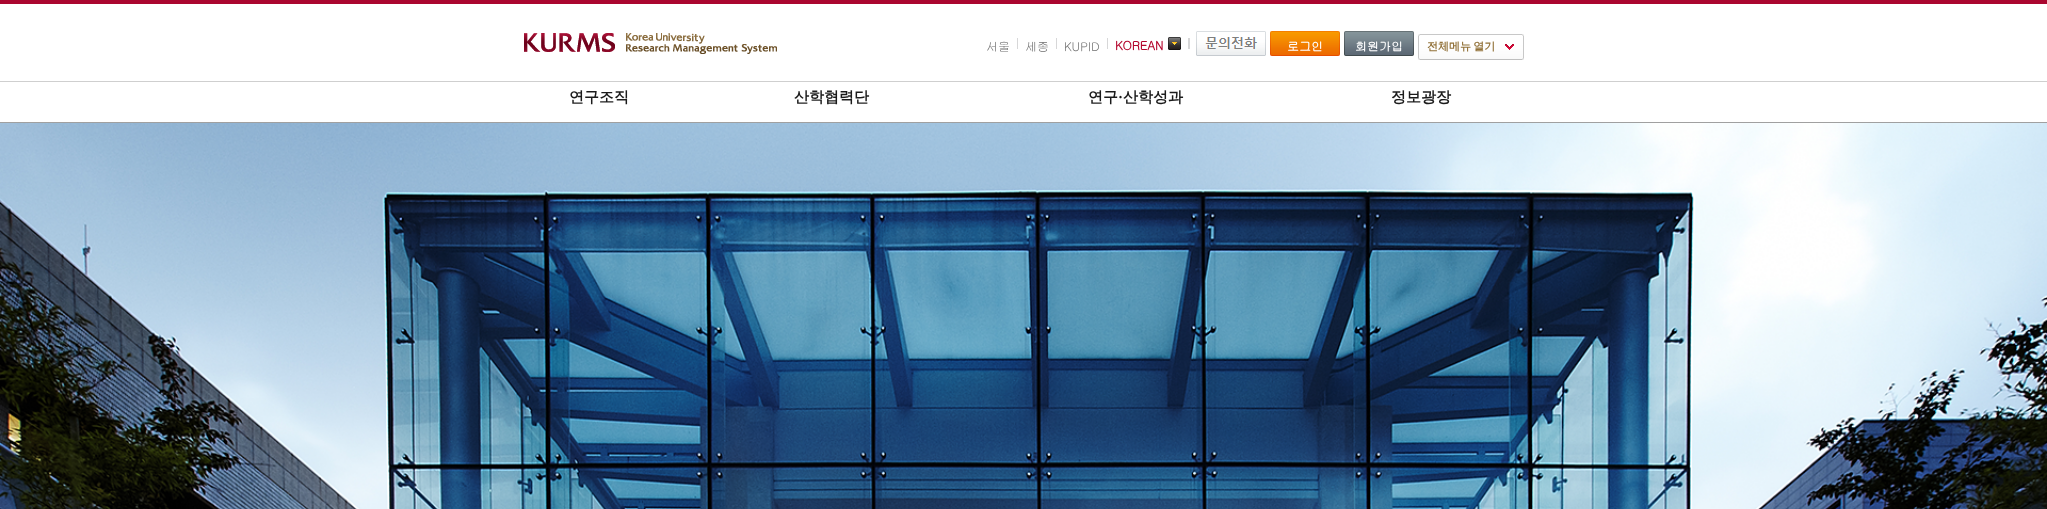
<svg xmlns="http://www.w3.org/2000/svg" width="2047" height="509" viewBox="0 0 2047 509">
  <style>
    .t1 { font: 12px Gulim; fill: #707070; }
    .t2 { font: bold 12px Gulim; fill: #b4062d; }
    .t3 { font: bold 12px Gulim; fill: #fff; }
    .t4 { font: bold 11px WenQuanYi Zen Hei; fill: #93733b; }
    .t5 { font: bold 15px WenQuanYi Zen Hei; fill: #1b1b1b; }
    .t6 { font: bold 15px Liberation Serif; fill: #1b1b1b; }
  </style>
  <rect width="100%" height="100%" fill="#fff"/>
  <rect x="0" y="0" width="2047" height="4" fill="#aa062f"/>
  <image x="524" y="33" width="253" height="21" href="images/1.png"/>
  <text x="986" y="51" class="t1">서울</text>
  <rect x="1017" y="38" width="1" height="11" fill="#d7d7d8"/>
  <text x="1025" y="51" class="t1">세종</text>
  <rect x="1056" y="38" width="1" height="11" fill="#d7d7d8"/>
  <text x="1064" y="51" class="t1">KUPID</text>
  <rect x="1107" y="38" width="1" height="11" fill="#d7d7d8"/>
  <image x="1168" y="37" width="13" height="13" href="images/2.png"/>
  <text x="1115" y="50" class="t2">KOREAN</text>
  <rect x="1188" y="38" width="2" height="11" fill="#d7d7d8"/>
  <image x="1196" y="31" width="70" height="25" href="images/3.png"/>
  <image x="1270" y="31" width="70" height="25" href="images/4.png"/>
  <text x="1287" y="51" class="t3">로그인</text>
  <image x="1344" y="31" width="70" height="25" href="images/5.png"/>
  <text x="1355" y="51" class="t3">회원가입</text>
  <image x="1418" y="34" width="106" height="26" href="images/6.png"/>
  <text x="1427" y="50" word-spacing="-1" class="t4">전체메뉴 열기</text>
  <rect x="0" y="81" width="2047" height="1" fill="#cfcfcf"/>
  <rect x="0" y="122" width="2047" height="1" fill="#a0a0a0"/>
  <text x="569" y="102" class="t5">연구조직</text>
  <text x="794" y="102" class="t5">산학협력단</text>
  <text x="1088" y="102" class="t5">연구</text>
  <text x="1118" y="102" class="t6">·</text>
  <text x="1123" y="102" class="t5">산학성과</text>
  <text x="1391" y="102" class="t5">정보광장</text>
  <image x="0" y="123" width="2047" height="386" href="images/7.png"/>
</svg>
